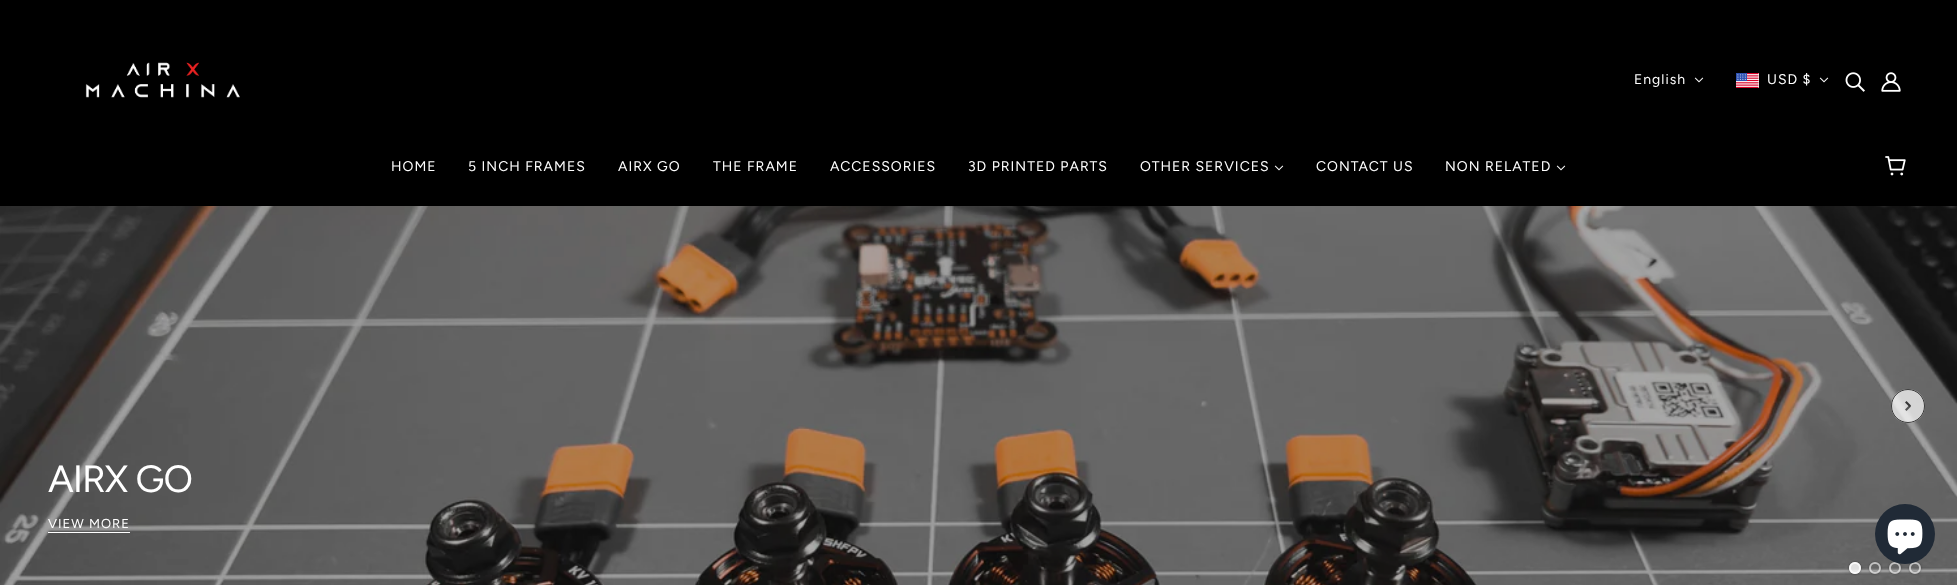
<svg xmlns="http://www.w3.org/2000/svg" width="1957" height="585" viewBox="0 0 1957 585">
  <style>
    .t1 { font: 14px Figtree; letter-spacing: 1px; fill: #fff; }
    .t2 { font: 38px Figtree; letter-spacing: -1px; fill: #fff; }
    .t3 { font: 13px Figtree; letter-spacing: 1px; fill: #fff; }
  </style>
  <defs>
    <clipPath id="clip1"><path d="M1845 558H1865V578H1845ZM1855 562C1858.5 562 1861 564.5 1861 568C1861 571.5 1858.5 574 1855 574C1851.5 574 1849 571.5 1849 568C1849 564.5 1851.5 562 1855 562Z" clip-rule="evenodd"/></clipPath>
    <clipPath id="clip2"><path d="M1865 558H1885V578H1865ZM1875 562C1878.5 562 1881 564.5 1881 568C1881 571.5 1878.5 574 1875 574C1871.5 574 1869 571.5 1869 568C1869 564.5 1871.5 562 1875 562Z" clip-rule="evenodd"/></clipPath>
    <clipPath id="clip3"><path d="M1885 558H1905V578H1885ZM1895 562C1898.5 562 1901 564.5 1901 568C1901 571.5 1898.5 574 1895 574C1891.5 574 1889 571.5 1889 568C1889 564.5 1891.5 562 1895 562Z" clip-rule="evenodd"/></clipPath>
    <clipPath id="clip4"><path d="M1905 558H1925V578H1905ZM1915 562C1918.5 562 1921 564.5 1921 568C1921 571.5 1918.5 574 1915 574C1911.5 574 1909 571.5 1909 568C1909 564.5 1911.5 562 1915 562Z" clip-rule="evenodd"/></clipPath>
  </defs>
  <rect width="100%" height="100%" fill="#fff"/>
  <rect x="0" y="0" width="1957" height="206" fill="#000"/>
  <image x="85" y="62" width="155" height="36" href="images/1.png"/>
  <text x="1634" y="84" class="t1">English</text>
  <image x="1694" y="77" width="10" height="6" href="images/2.png"/>
  <image x="1736" y="73" width="23" height="15" href="images/3.png"/>
  <text x="1767" y="84" class="t1">USD $</text>
  <image x="1819" y="77" width="10" height="6" href="images/2.png"/>
  <image x="1845" y="72" width="20" height="20" href="images/4.png"/>
  <image x="1881" y="72" width="20" height="20" href="images/5.png"/>
  <text x="391" y="171" class="t1">HOME</text>
  <text x="468" y="171" class="t1">5 INCH FRAMES</text>
  <text x="618" y="171" class="t1">AIRX GO</text>
  <text x="713" y="171" class="t1">THE FRAME</text>
  <text x="830" y="171" class="t1">ACCESSORIES</text>
  <text x="968" y="171" class="t1">3D PRINTED PARTS</text>
  <text x="1140" y="171" class="t1">OTHER SERVICES</text>
  <image x="1274" y="165" width="10" height="6" href="images/2.png"/>
  <text x="1316" y="171" class="t1">CONTACT US</text>
  <text x="1445" y="171" class="t1">NON RELATED</text>
  <image x="1556" y="165" width="10" height="6" href="images/2.png"/>
  <image x="1885" y="156" width="21" height="20" href="images/6.png"/>
  <image x="0" y="206" width="1957" height="379" href="images/7.png"/>
  <circle cx="1908" cy="406" r="17" fill="#ffffffb8"/>
  <circle cx="1908" cy="406" r="16.5" fill="none" stroke="#000000b8"/>
  <path d="M1905 409.5L1909.5 405L1911 406.5L1906.5 411Z" fill="#212121b8"/>
  <path d="M1906.5 401L1911 405.5L1909.5 407L1905 402.5Z" fill="#353535"/>
  <text x="48" y="492" class="t2">AIRX GO</text>
  <text x="48" y="528" class="t3">VIEW MORE</text>
  <rect x="48" y="532" width="82" height="1" fill="#fff"/>
  <g clip-path="url(#clip1)">
    <rect x="1849" y="562" width="12" height="12" rx="6" fill="#0000007a" filter="blur(1px)"/>
  </g>
  <circle cx="1855" cy="568" r="6" fill="#ffffffcc"/>
  <circle cx="1855" cy="568" r="5" fill="none" stroke="#ffffffcc" stroke-width="2"/>
  <g clip-path="url(#clip2)">
    <rect x="1869" y="562" width="12" height="12" rx="6" fill="#0000005c" filter="blur(1px)"/>
  </g>
  <circle cx="1875" cy="568" r="5" fill="none" stroke="#ffffff99" stroke-width="2"/>
  <g clip-path="url(#clip3)">
    <rect x="1889" y="562" width="12" height="12" rx="6" fill="#0000005c" filter="blur(1px)"/>
  </g>
  <circle cx="1895" cy="568" r="5" fill="none" stroke="#ffffff99" stroke-width="2"/>
  <g clip-path="url(#clip4)">
    <rect x="1909" y="562" width="12" height="12" rx="6" fill="#0000005c" filter="blur(1px)"/>
  </g>
  <circle cx="1915" cy="568" r="5" fill="none" stroke="#ffffff99" stroke-width="2"/>
  <circle cx="1905" cy="534" r="30" fill="#202a36"/>
  <image x="1887" y="519" width="36" height="36" href="images/8.png"/>
</svg>
